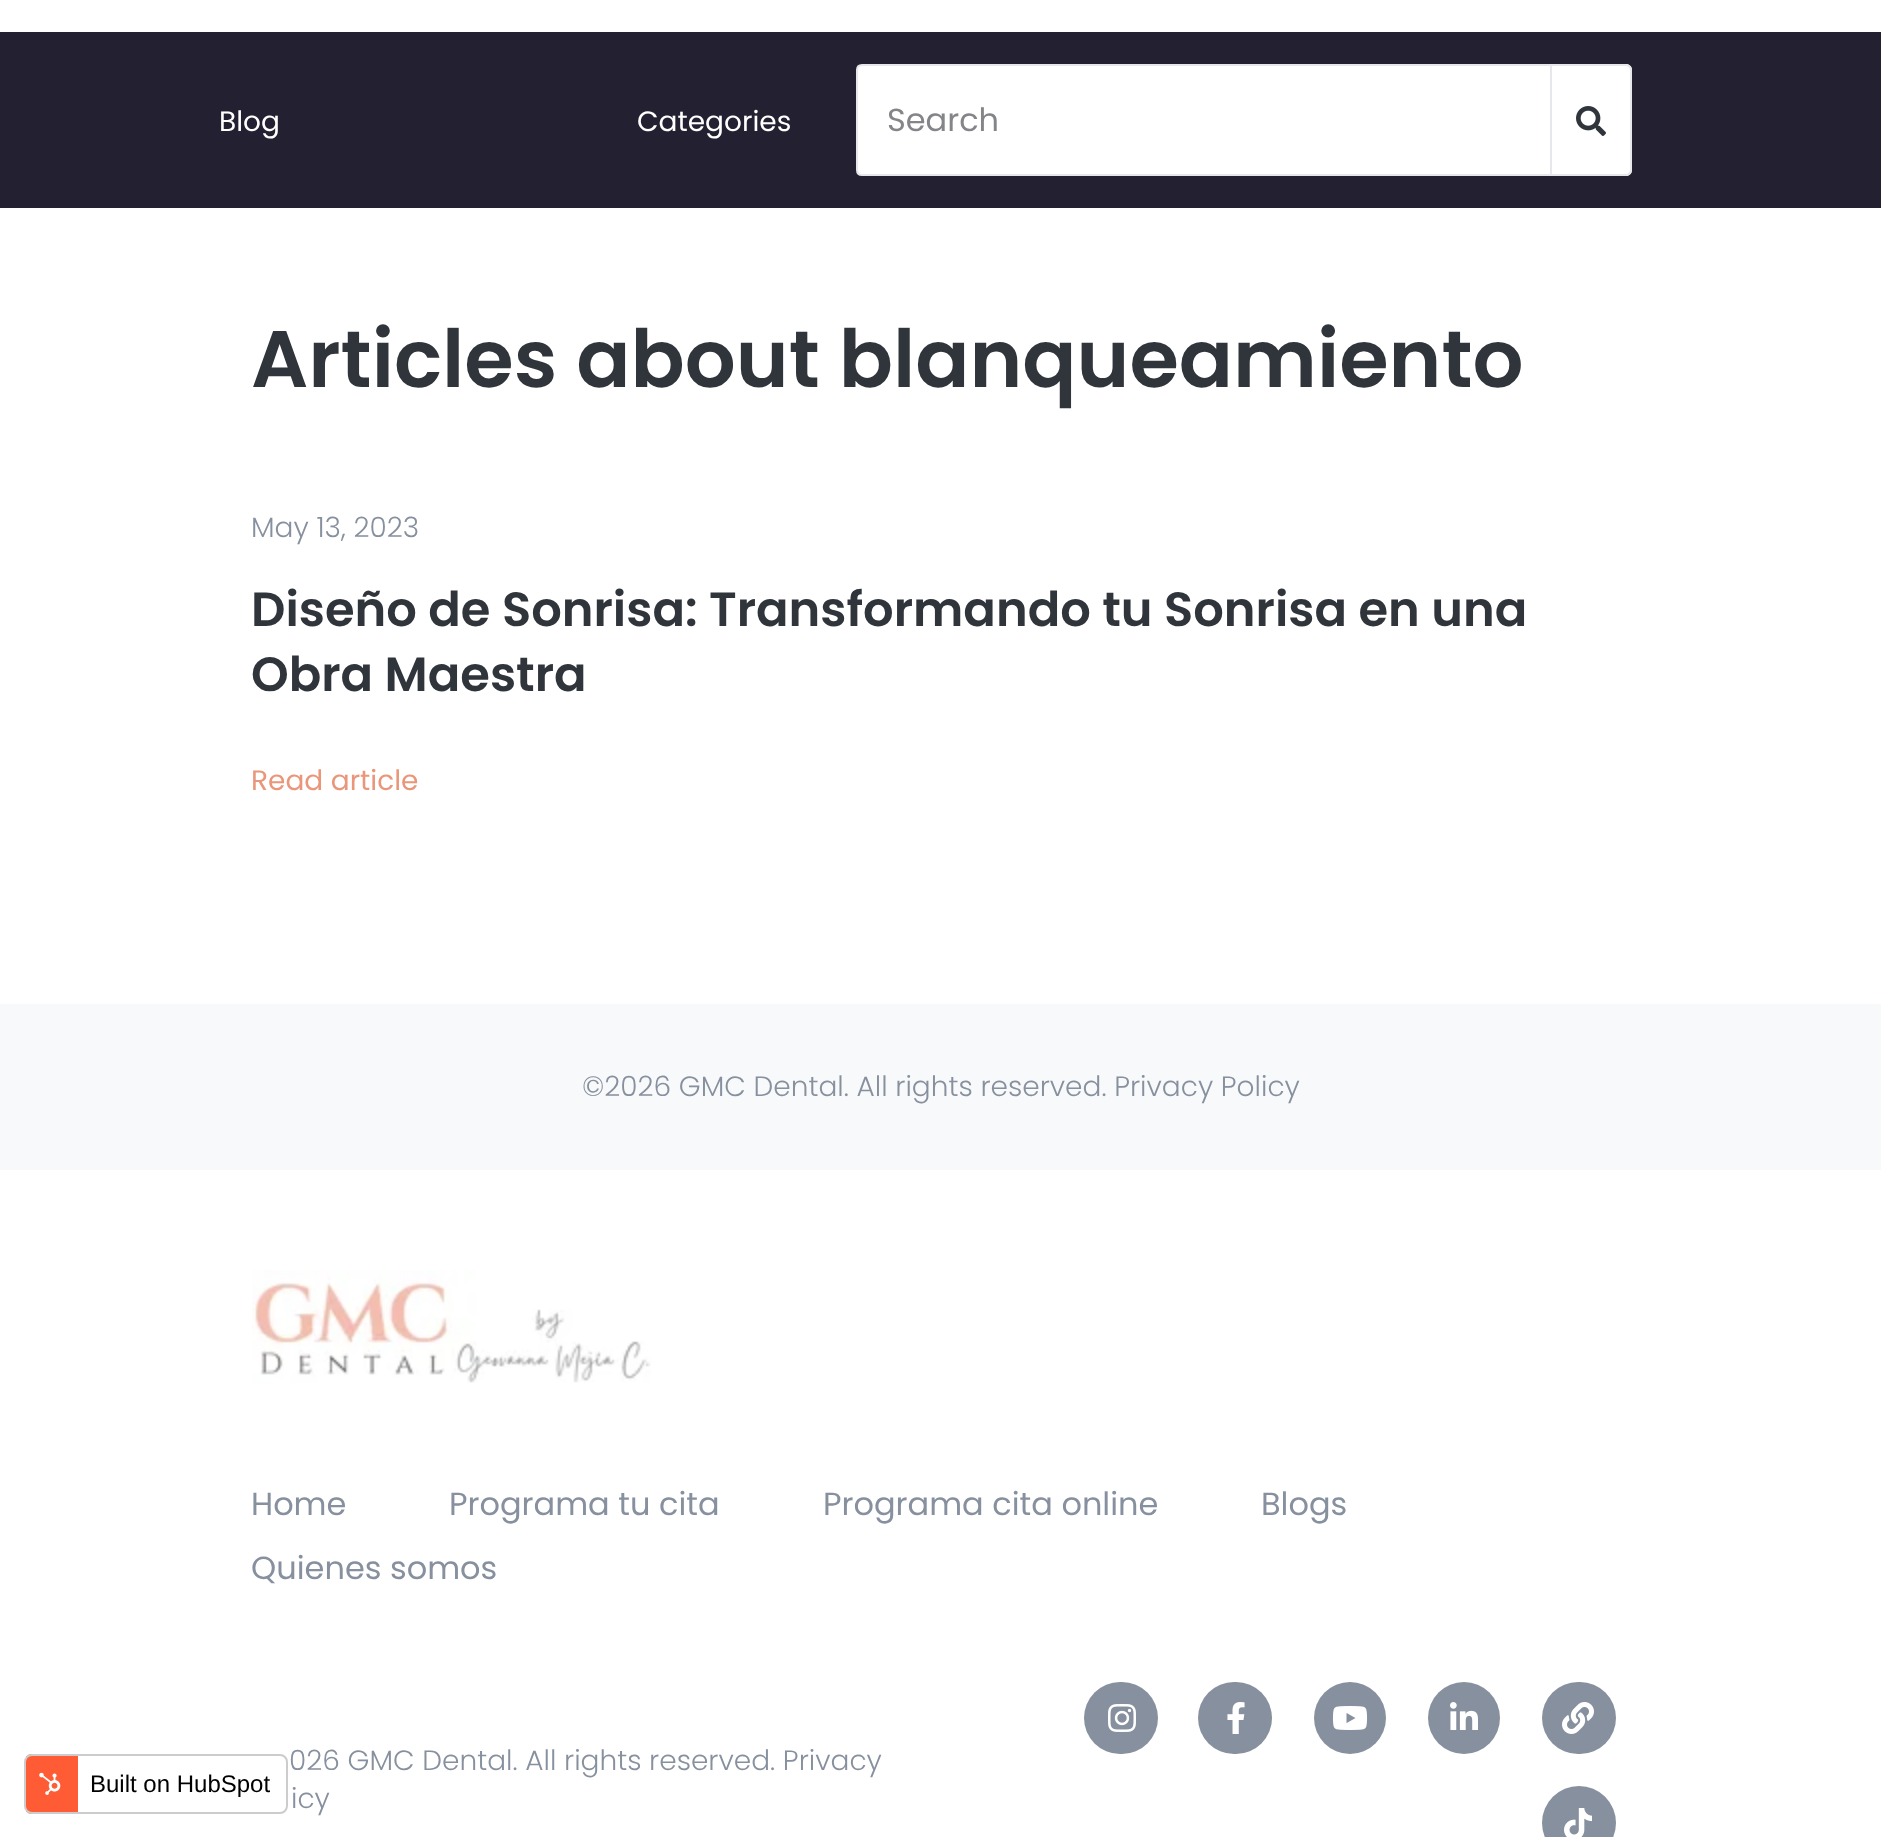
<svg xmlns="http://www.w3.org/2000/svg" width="1881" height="1837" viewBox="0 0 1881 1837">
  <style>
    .t1 { font: 28px Poppins; fill: #fff; }
    .t2 { font: 32px Poppins; fill: #838589; }
    .t3 { font: 600 80px Poppins; fill: #30343b; }
    .t4 { font: 300 28px Poppins; fill: #87909e; }
    .t5 { font: 600 48px Poppins; fill: #30343b; }
    .t6 { font: 28px Poppins; fill: #e9967a; }
    .t7 { font: 24px Liberation Sans; fill: #000; }
    .t8 { font: 32px Poppins; fill: #87909e; }
  </style>
  <defs>
    <clipPath id="clip1"><rect x="24" y="1754" width="264" height="60" rx="8"/></clipPath>
  </defs>
  <rect width="100%" height="100%" fill="#fff"/>
  <rect x="0" y="32" width="1881" height="176" fill="#232031"/>
  <text x="219" y="131" class="t1">Blog</text>
  <text x="637" y="131" class="t1">Categories</text>
  <path d="M862 65H1551V175H862C859 175 857 173 857 170V70C857 67 859 65 862 65Z" fill="#fff" stroke="#e5e7ea" stroke-width="2"/>
  <text x="887" y="131" class="t2">Search</text>
  <path d="M1552 64H1626C1629.5 64 1632 66.5 1632 70V170C1632 173.5 1629.5 176 1626 176H1552Z" fill="#fff"/>
  <path d="M1552 64H1626C1629 64 1632 67 1632 70V170C1632 173 1629 176 1626 176H1552ZM1552 66H1626C1628 66 1630 68 1630 70V170C1630 172 1628 174 1626 174H1552Z" fill="#e5e7ea" fill-rule="evenodd"/>
  <image x="1576" y="106" width="30" height="30" href="images/1.png"/>
  <text x="251" y="387" class="t3">Articles about blanqueamiento</text>
  <text x="251" y="537" class="t4">May 13, 2023</text>
  <text x="251" y="626" class="t5">Diseño de Sonrisa: Transformando tu Sonrisa en una</text>
  <text x="251" y="691" class="t5">Obra Maestra</text>
  <text x="251" y="790" class="t6">Read article</text>
  <rect x="0" y="1004" width="1881" height="166" fill="#f8f9fa"/>
  <text x="582" y="1096" class="t4">©2026 GMC Dental. All rights reserved. Privacy Policy</text>
  <g clip-path="url(#clip1)">
    <rect x="26" y="1754" width="52" height="60" fill="#ff5c35"/>
  </g>
  <rect x="25" y="1755" width="262" height="58" rx="7" fill="none" stroke="#ccc" stroke-width="2"/>
  <image x="39" y="1772" width="22" height="23" href="images/2.png"/>
  <text x="90" y="1792" class="t7">Built on HubSpot</text>
  <image x="252" y="1270" width="399" height="113" href="images/3.png"/>
  <text x="251" y="1515" class="t8">Home</text>
  <text x="449" y="1515" class="t8">Programa tu cita</text>
  <text x="823" y="1515" class="t8">Programa cita online</text>
  <text x="1261" y="1515" class="t8">Blogs</text>
  <text x="251" y="1579" class="t8">Quienes somos</text>
  <text x="289" y="1770" class="t4">026 GMC Dental. All rights reserved. Privacy</text>
  <text x="291" y="1808" class="t4">icy</text>
  <rect x="1084" y="1682" width="74" height="72" rx="36" fill="#87909e"/>
  <image x="1108" y="1704" width="28" height="28" href="images/4.png"/>
  <rect x="1198" y="1682" width="74" height="72" rx="36" fill="#87909e"/>
  <image x="1227" y="1702" width="18" height="32" href="images/5.png"/>
  <circle cx="1350" cy="1718" r="36" fill="#87909e"/>
  <image x="1332" y="1706" width="36" height="24" href="images/6.png"/>
  <circle cx="1464" cy="1718" r="36" fill="#87909e"/>
  <image x="1450" y="1702" width="28" height="28" href="images/7.png"/>
  <rect x="1542" y="1682" width="74" height="72" rx="36" fill="#87909e"/>
  <image x="1562" y="1702" width="32" height="32" href="images/8.png"/>
  <circle cx="1579" cy="1823" r="37" fill="#87909e"/>
  <image x="1564" y="1808" width="28" height="29" href="images/9.png"/>
</svg>
